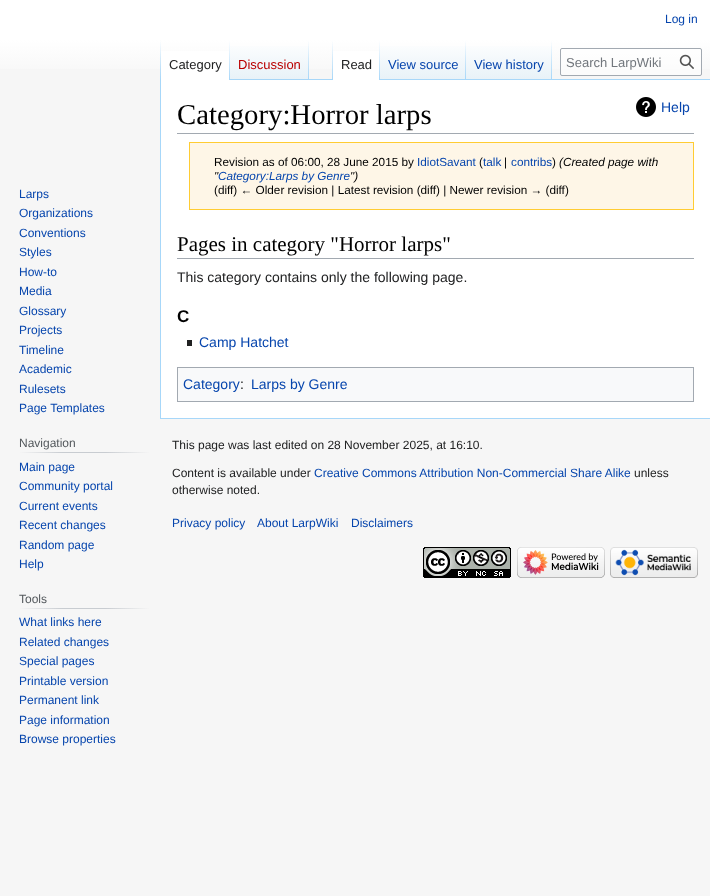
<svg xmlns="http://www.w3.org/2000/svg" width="710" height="896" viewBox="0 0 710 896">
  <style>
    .t1 { font: 12px Liberation Sans; fill: #0645ad; }
    .t2 { font: 13px Liberation Sans; fill: #202122; }
    .t3 { font: 13px Liberation Sans; fill: #ba0000; }
    .t4 { font: 13px Liberation Sans; fill: #0645ad; }
    .t5 { font: 13px Liberation Sans; fill: #72777d; }
    .t6 { font: 12px Liberation Sans; fill: #54595d; }
    .t7 { font: 28.75px Liberation Serif; fill: #000; }
    .t8 { font: 14px Liberation Sans; fill: #0645ad; }
    .t9 { font: 11.75px Liberation Sans; fill: #000; }
    .t10 { font: 11.75px Liberation Sans; fill: #0645ad; }
    .t11 { font: italic 11.75px Liberation Sans; fill: #000; }
    .t12 { font: italic 11.75px Liberation Sans; fill: #0645ad; }
    .t13 { font: 21px Liberation Serif; fill: #000; }
    .t14 { font: 14px Liberation Sans; fill: #202122; }
    .t15 { font: bold 17px Liberation Sans; fill: #000; }
    .t16 { font: 12px Liberation Sans; fill: #202122; }
  </style>
  <defs>
    <linearGradient id="g1" gradientUnits="userSpaceOnUse" x1="355" y1="0" x2="355" y2="80"><stop offset="0.5" stop-color="#fff"/><stop offset="1" stop-color="#f6f6f6"/></linearGradient>
    <linearGradient id="g2" gradientUnits="userSpaceOnUse" x1="161" y1="40" x2="161" y2="80"><stop offset="0" stop-color="#a7d7f9" stop-opacity="0"/><stop offset="1" stop-color="#a7d7f9"/></linearGradient>
    <linearGradient id="g3" gradientUnits="userSpaceOnUse" x1="230" y1="40" x2="230" y2="80"><stop offset="0" stop-color="#fff"/><stop offset="1" stop-color="#a7d7f9"/></linearGradient>
    <linearGradient id="g4" gradientUnits="userSpaceOnUse" x1="270" y1="80" x2="270" y2="40"><stop offset="0" stop-color="#77c1f6"/><stop offset="0.03" stop-color="#e8f2f8"/><stop offset="1" stop-color="#fff"/></linearGradient>
    <linearGradient id="g5" gradientUnits="userSpaceOnUse" x1="309" y1="40" x2="309" y2="80"><stop offset="0" stop-color="#a7d7f9" stop-opacity="0"/><stop offset="1" stop-color="#a7d7f9"/></linearGradient>
    <linearGradient id="g6" gradientUnits="userSpaceOnUse" x1="333" y1="40" x2="333" y2="80"><stop offset="0" stop-color="#a7d7f9" stop-opacity="0"/><stop offset="1" stop-color="#a7d7f9"/></linearGradient>
    <linearGradient id="g7" gradientUnits="userSpaceOnUse" x1="380" y1="40" x2="380" y2="80"><stop offset="0" stop-color="#fff"/><stop offset="1" stop-color="#a7d7f9"/></linearGradient>
    <linearGradient id="g8" gradientUnits="userSpaceOnUse" x1="423" y1="80" x2="423" y2="40"><stop offset="0" stop-color="#77c1f6"/><stop offset="0.03" stop-color="#e8f2f8"/><stop offset="1" stop-color="#fff"/></linearGradient>
    <linearGradient id="g9" gradientUnits="userSpaceOnUse" x1="466" y1="40" x2="466" y2="80"><stop offset="0" stop-color="#a7d7f9" stop-opacity="0"/><stop offset="1" stop-color="#a7d7f9"/></linearGradient>
    <linearGradient id="g10" gradientUnits="userSpaceOnUse" x1="509" y1="80" x2="509" y2="40"><stop offset="0" stop-color="#77c1f6"/><stop offset="0.03" stop-color="#e8f2f8"/><stop offset="1" stop-color="#fff"/></linearGradient>
    <linearGradient id="g11" gradientUnits="userSpaceOnUse" x1="552" y1="40" x2="552" y2="80"><stop offset="0" stop-color="#a7d7f9" stop-opacity="0"/><stop offset="1" stop-color="#a7d7f9"/></linearGradient>
    <linearGradient id="g12" gradientUnits="userSpaceOnUse" x1="19" y1="453" x2="150" y2="453"><stop offset="0" stop-color="#f6f6f6"/><stop offset="0.33" stop-color="#c8ccd1"/><stop offset="0.66" stop-color="#c8ccd1"/><stop offset="1" stop-color="#f6f6f6"/></linearGradient>
    <linearGradient id="g13" gradientUnits="userSpaceOnUse" x1="19" y1="609" x2="150" y2="609"><stop offset="0" stop-color="#f6f6f6"/><stop offset="0.33" stop-color="#c8ccd1"/><stop offset="0.66" stop-color="#c8ccd1"/><stop offset="1" stop-color="#f6f6f6"/></linearGradient>
  </defs>
  <rect width="100%" height="100%" fill="#f6f6f6"/>
  <rect x="0" y="0" width="710" height="69" fill="url(#g1)"/>
  <text x="665" y="23" class="t1">Log in</text>
  <rect x="160" y="418" width="550" height="1" fill="#a7d7f9"/>
  <rect x="160" y="79" width="1" height="340" fill="#a7d7f9"/>
  <rect x="160" y="40" width="1" height="40" fill="url(#g2)"/>
  <rect x="161" y="51" width="68" height="29" fill="#fff"/>
  <rect x="229" y="40" width="1" height="40" fill="url(#g3)"/>
  <text x="169" y="69" class="t2">Category</text>
  <rect x="230" y="46" width="79" height="34" fill="url(#g4)"/>
  <rect x="308" y="40" width="1" height="40" fill="url(#g5)"/>
  <text x="238" y="69" class="t3">Discussion</text>
  <rect x="309" y="79" width="401" height="1" fill="#a7d7f9"/>
  <rect x="332" y="40" width="1" height="40" fill="url(#g6)"/>
  <rect x="333" y="51" width="46" height="29" fill="#fff"/>
  <rect x="379" y="40" width="1" height="40" fill="url(#g7)"/>
  <text x="341" y="69" class="t2">Read</text>
  <rect x="380" y="46" width="86" height="33" fill="url(#g8)"/>
  <rect x="465" y="40" width="1" height="40" fill="url(#g9)"/>
  <text x="388" y="69" class="t4">View source</text>
  <rect x="466" y="46" width="86" height="33" fill="url(#g10)"/>
  <rect x="551" y="40" width="1" height="40" fill="url(#g11)"/>
  <text x="474" y="69" class="t4">View history</text>
  <rect x="560.5" y="48.5" width="141" height="27" rx="1.5" fill="#ffffff80" stroke="#a2a9b1"/>
  <text x="566" y="67" class="t5">Search LarpWiki</text>
  <image x="679" y="54" width="15" height="15" href="images/1.png"/>
  <text x="19" y="198" class="t1">Larps</text>
  <text x="19" y="217" class="t1">Organizations</text>
  <text x="19" y="237" class="t1">Conventions</text>
  <text x="19" y="256" class="t1">Styles</text>
  <text x="19" y="276" class="t1">How-to</text>
  <text x="19" y="295" class="t1">Media</text>
  <text x="19" y="315" class="t1">Glossary</text>
  <text x="19" y="334" class="t1">Projects</text>
  <text x="19" y="354" class="t1">Timeline</text>
  <text x="19" y="373" class="t1">Academic</text>
  <text x="19" y="393" class="t1">Rulesets</text>
  <text x="19" y="412" class="t1">Page Templates</text>
  <rect x="19" y="452" width="131" height="1" fill="url(#g12)"/>
  <text x="19" y="447" class="t6">Navigation</text>
  <text x="19" y="471" class="t1">Main page</text>
  <text x="19" y="490" class="t1">Community portal</text>
  <text x="19" y="510" class="t1">Current events</text>
  <text x="19" y="529" class="t1">Recent changes</text>
  <text x="19" y="549" class="t1">Random page</text>
  <text x="19" y="568" class="t1">Help</text>
  <rect x="19" y="608" width="131" height="1" fill="url(#g13)"/>
  <text x="19" y="603" class="t6">Tools</text>
  <text x="19" y="626" class="t1">What links here</text>
  <text x="19" y="646" class="t1">Related changes</text>
  <text x="19" y="665" class="t1">Special pages</text>
  <text x="19" y="685" class="t1">Printable version</text>
  <text x="19" y="704" class="t1">Permanent link</text>
  <text x="19" y="724" class="t1">Page information</text>
  <text x="19" y="743" class="t1">Browse properties</text>
  <rect x="161" y="80" width="549" height="338" fill="#fff"/>
  <rect x="177" y="133" width="517" height="1" fill="#a2a9b1"/>
  <text x="177" y="124" class="t7">Category:Horror larps</text>
  <image x="636" y="97" width="20" height="20" href="images/2.png"/>
  <text x="661" y="112" class="t8">Help</text>
  <rect x="189.5" y="142.5" width="504" height="67" fill="#fef6e7" stroke="#fc3"/>
  <text x="214" y="166" class="t9">Revision as of 06:00, 28 June 2015 by</text>
  <text x="417" y="166" class="t10">IdiotSavant</text>
  <text x="479" y="166" class="t9">(</text>
  <text x="483" y="166" class="t10">talk</text>
  <text x="504" y="166" class="t9">|</text>
  <text x="511" y="166" class="t10">contribs</text>
  <text x="552" y="166" class="t9">)</text>
  <text x="559" y="166" class="t11">(Created page with</text>
  <text x="214" y="180" class="t11">"</text>
  <text x="218" y="180" class="t12">Category:Larps by Genre</text>
  <text x="350" y="180" class="t11">")</text>
  <text x="214" y="194" class="t9">(diff) ← Older revision | Latest revision (diff) | Newer revision → (diff)</text>
  <rect x="177" y="258" width="517" height="1" fill="#a2a9b1"/>
  <text x="177" y="251" class="t13">Pages in category "Horror larps"</text>
  <text x="177" y="282" class="t14">This category contains only the following page.</text>
  <text x="177" y="322" class="t15">C</text>
  <rect x="187" y="340" width="5" height="6" fill="#202122"/>
  <text x="199" y="347" class="t8">Camp Hatchet</text>
  <rect x="177.5" y="367.5" width="516" height="34" fill="#f8f9fa" stroke="#a2a9b1"/>
  <text x="183" y="389" class="t8">Category</text>
  <text x="240" y="389" class="t14">:</text>
  <text x="251" y="389" class="t8">Larps by Genre</text>
  <text x="172" y="449" class="t16">This page was last edited on 28 November 2025, at 16:10.</text>
  <text x="172" y="477" class="t16">Content is available under</text>
  <text x="314" y="477" class="t1">Creative Commons Attribution Non-Commercial Share Alike</text>
  <text x="634" y="477" class="t16">unless</text>
  <text x="172" y="494" class="t16">otherwise noted.</text>
  <text x="172" y="527" class="t1">Privacy policy</text>
  <text x="257" y="527" class="t1">About LarpWiki</text>
  <text x="351" y="527" class="t1">Disclaimers</text>
  <image x="423" y="547" width="88" height="31" href="images/3.png"/>
  <image x="517" y="547" width="88" height="31" href="images/4.png"/>
  <image x="610" y="547" width="88" height="31" href="images/5.png"/>
</svg>
